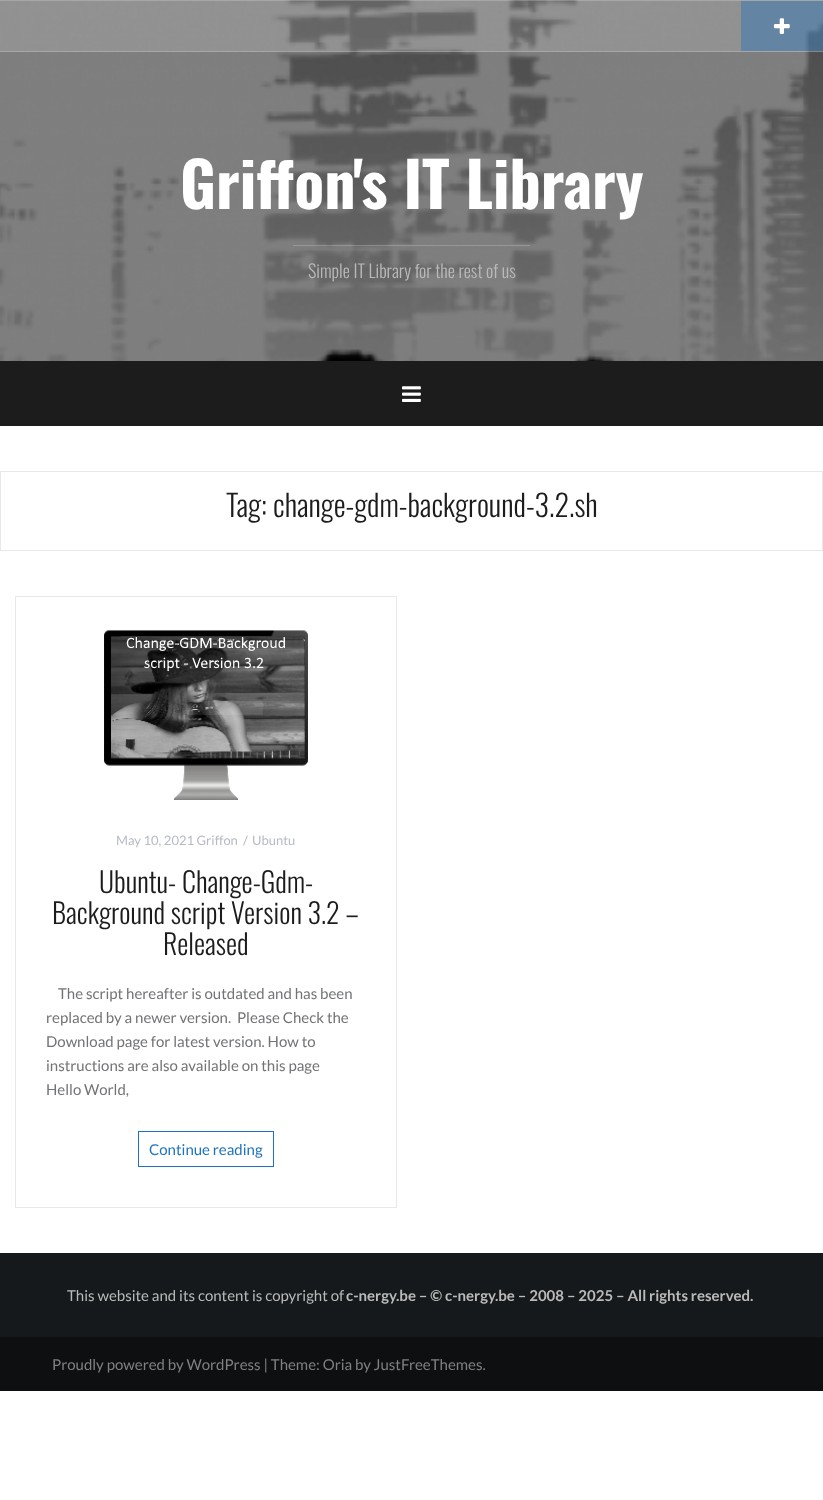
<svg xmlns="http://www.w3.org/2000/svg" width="823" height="1500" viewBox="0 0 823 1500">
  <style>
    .t1 { font: bold 62px Oswald; fill: #fff; }
    .t2 { font: 300 18px Oswald; fill: #bababa; }
    .t3 { font: 300 30px Oswald; fill: #1c1c1c; }
    .t4 { font: 13px Lato; fill: #b5bbc5; }
    .t5 { font: 300 28px Oswald; fill: #1c1c1c; }
    .t6 { font: 15px Lato; fill: #717376; }
    .t7 { font: 15px Lato; fill: #1e73be; }
    .t8 { font: 15px Lato; fill: #bababa; }
    .t9 { font: bold 15px Lato; fill: #bababa; }
    .t10 { font: 15px Lato; fill: #808080; }
  </style>
  <rect width="100%" height="100%" fill="#fff"/>
  <image x="0" y="0" width="823" height="361" href="images/1.png"/>
  <rect x="0" y="0" width="823" height="52" fill="#ffffff26"/>
  <rect x="0" y="0" width="823" height="1" fill="#ffffff33"/>
  <rect x="0" y="51" width="823" height="1" fill="#ffffff33"/>
  <rect x="741" y="1" width="82" height="50" fill="#1e73be66"/>
  <image x="774" y="18" width="16" height="16" href="images/2.png"/>
  <text x="180" y="209" class="t1">Griffon's IT Library</text>
  <rect x="293" y="245" width="237" height="1" fill="#ffffff33"/>
  <text x="308" y="278" class="t2">Simple IT Library for the rest of us</text>
  <rect x="0" y="361" width="823" height="65" fill="#1c1c1c"/>
  <image x="402" y="386" width="19" height="16" href="images/3.png"/>
  <rect x="0.5" y="471.5" width="822" height="79" fill="none" stroke="#e8e8e8"/>
  <text x="226" y="517" class="t3">Tag: change-gdm-background-3.2.sh</text>
  <rect x="15.5" y="596.5" width="381" height="611" fill="none" stroke="#e8e8e8"/>
  <image x="104" y="630" width="204" height="170" href="images/4.png"/>
  <text x="116" y="845" class="t4">May 10, 2021 Griffon</text>
  <text x="243" y="845" class="t4">/</text>
  <text x="252" y="845" class="t4">Ubuntu</text>
  <text x="99" y="893" class="t5">Ubuntu- Change-Gdm-</text>
  <text x="52" y="924" class="t5">Background script Version 3.2 –</text>
  <text x="163" y="955" class="t5">Released</text>
  <text x="58" y="999" class="t6">The script hereafter is outdated and has been</text>
  <text x="46" y="1023" class="t6" xml:space="preserve">replaced by a newer version.  Please Check the</text>
  <text x="46" y="1047" class="t6">Download page for latest version. How to</text>
  <text x="46" y="1071" class="t6">instructions are also available on this page</text>
  <text x="46" y="1095" class="t6">Hello World,</text>
  <rect x="138.5" y="1131.5" width="135" height="35" fill="none" stroke="#1e73be"/>
  <text x="149" y="1155" class="t7">Continue reading</text>
  <rect x="0" y="1253" width="823" height="84" fill="#15191b"/>
  <text x="67" y="1301" class="t8">This website and its content is copyright of</text>
  <text x="346" y="1301" class="t9">c-nergy.be – © c-nergy.be – 2008 – 2025 – All rights reserved.</text>
  <rect x="0" y="1337" width="823" height="54" fill="#0d0f10"/>
  <text x="52" y="1370" class="t10">Proudly powered by WordPress | Theme: Oria by JustFreeThemes.</text>
</svg>
